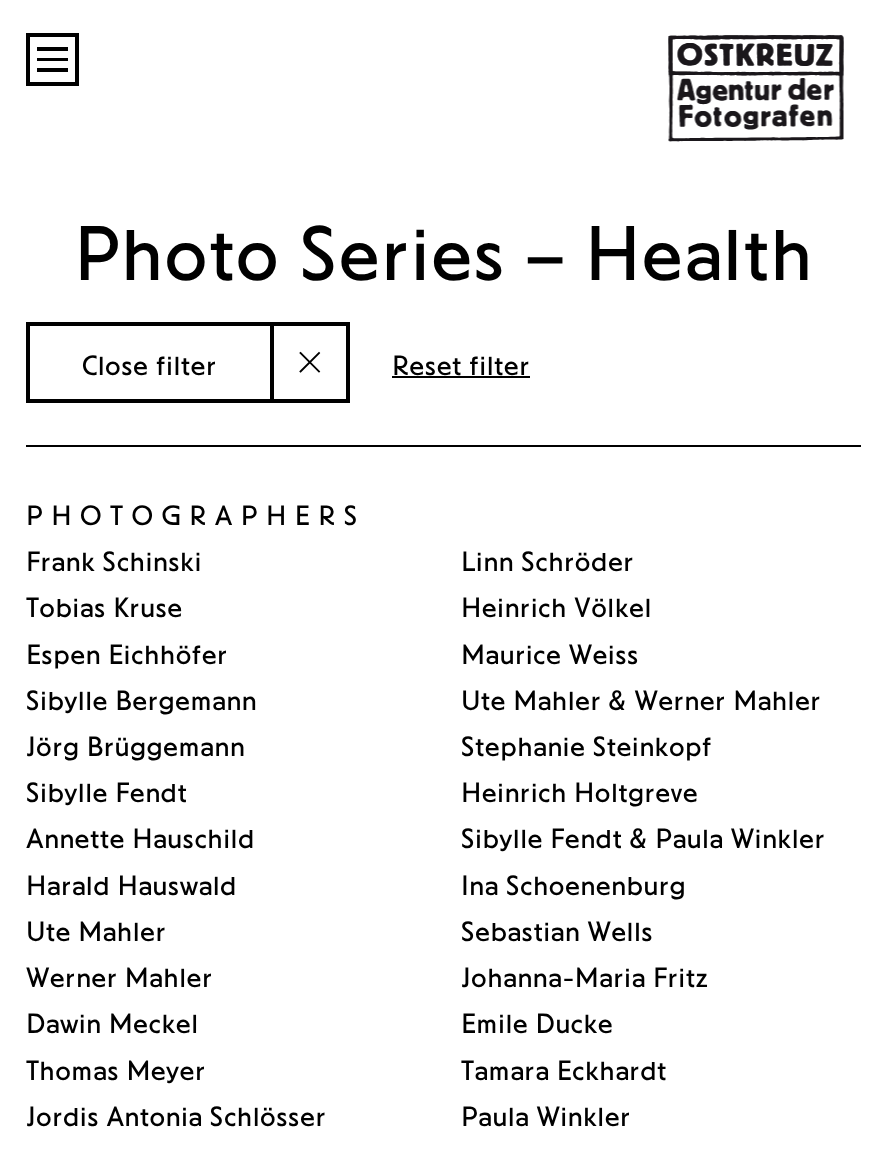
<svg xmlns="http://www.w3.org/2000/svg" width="887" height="1152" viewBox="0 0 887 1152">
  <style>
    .t1 { font: 77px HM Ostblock; fill: #000; }
    .t2 { font: 28px HM Ostblock; fill: #000; }
    .t3 { font: 28px HM Ostblock; letter-spacing: 8.4px; fill: #000; }
  </style>
  <rect width="100%" height="100%" fill="#fff"/>
  <path d="M26 86V33H79V86ZM30 82H75V37H30ZM37 72V68H68V72ZM37 61V58H68V61ZM37 51V47H68V51Z" fill="#000"/>
  <image x="668" y="35" width="176" height="41" href="images/1.png"/>
  <image x="668" y="35" width="176" height="107" href="images/2.png"/>
  <text x="74" y="280" class="t1">Photo Series – Health</text>
  <rect x="26" y="445" width="835" height="2" fill="#000"/>
  <rect x="28" y="324" width="320" height="77" fill="none" stroke="#000" stroke-width="4"/>
  <text x="82" y="375" class="t2">Close filter</text>
  <path d="M319 353L300.5 371.5M300.5 353L319 371.5" fill="none" stroke="#000" stroke-width="1.8" stroke-linecap="square"/>
  <rect x="270" y="326" width="4" height="73" fill="#000"/>
  <text x="392" y="375" class="t2">Reset filter</text>
  <rect x="392" y="376" width="138" height="2" fill="#000"/>
  <text x="26" y="525" class="t3">PHOTOGRAPHERS</text>
  <text x="26" y="571" class="t2">Frank Schinski</text>
  <text x="461" y="571" class="t2">Linn Schröder</text>
  <text x="26" y="617" class="t2">Tobias Kruse</text>
  <text x="461" y="617" class="t2">Heinrich Völkel</text>
  <text x="26" y="664" class="t2">Espen Eichhöfer</text>
  <text x="461" y="664" class="t2">Maurice Weiss</text>
  <text x="26" y="710" class="t2">Sibylle Bergemann</text>
  <text x="461" y="710" class="t2">Ute Mahler &amp; Werner Mahler</text>
  <text x="26" y="756" class="t2">Jörg Brüggemann</text>
  <text x="461" y="756" class="t2">Stephanie Steinkopf</text>
  <text x="26" y="802" class="t2">Sibylle Fendt</text>
  <text x="461" y="802" class="t2">Heinrich Holtgreve</text>
  <text x="26" y="848" class="t2">Annette Hauschild</text>
  <text x="461" y="848" class="t2">Sibylle Fendt &amp; Paula Winkler</text>
  <text x="26" y="895" class="t2">Harald Hauswald</text>
  <text x="461" y="895" class="t2">Ina Schoenenburg</text>
  <text x="26" y="941" class="t2">Ute Mahler</text>
  <text x="461" y="941" class="t2">Sebastian Wells</text>
  <text x="26" y="987" class="t2">Werner Mahler</text>
  <text x="461" y="987" class="t2">Johanna-Maria Fritz</text>
  <text x="26" y="1033" class="t2">Dawin Meckel</text>
  <text x="461" y="1033" class="t2">Emile Ducke</text>
  <text x="26" y="1080" class="t2">Thomas Meyer</text>
  <text x="461" y="1080" class="t2">Tamara Eckhardt</text>
  <text x="26" y="1126" class="t2">Jordis Antonia Schlösser</text>
  <text x="461" y="1126" class="t2">Paula Winkler</text>
</svg>
